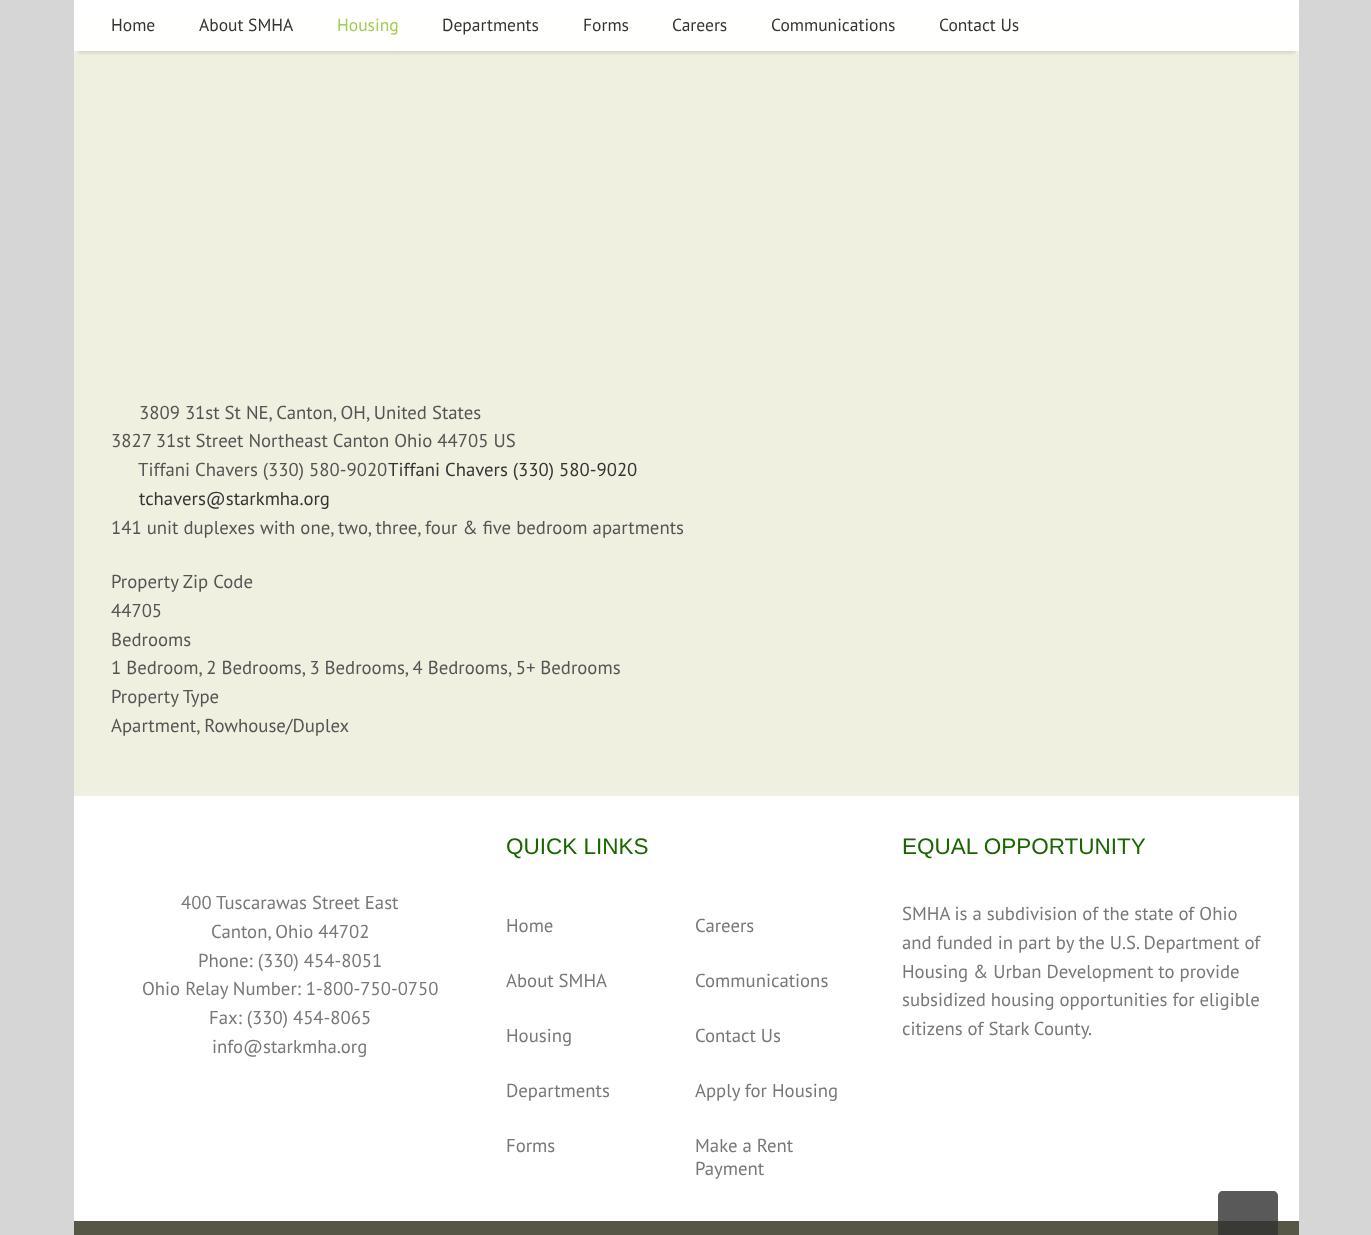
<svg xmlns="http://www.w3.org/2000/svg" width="1371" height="1235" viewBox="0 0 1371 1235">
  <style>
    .t1 { font: 17.5px PT Sans; fill: #333; }
    .t2 { font: 17.5px PT Sans; fill: #9fcd4d; }
    .t3 { font: 18.75px PT Sans; fill: #545454; }
    .t4 { font: 18.75px PT Sans; fill: #333; }
    .t5 { font: 18.75px PT Sans; fill: #777; }
    .t6 { font: 22.5px Liberation Sans; fill: #196600; }
  </style>
  <defs>
    <clipPath id="clip1"><rect x="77" y="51" width="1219" height="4"/></clipPath>
  </defs>
  <rect width="100%" height="100%" fill="#d7d6d6"/>
  <rect x="74" y="0" width="1225" height="13" fill="#fff"/>
  <rect x="74" y="13" width="1225" height="1" fill="#fefefe"/>
  <rect x="74" y="51" width="1225" height="745" fill="#f0f0e1"/>
  <rect x="74" y="14" width="1225" height="37" fill="#fffffe"/>
  <g clip-path="url(#clip1)">
    <rect x="78" y="9" width="1217" height="44" fill="#0000001f" filter="blur(2px)"/>
  </g>
  <text x="111" y="31" class="t1">Home</text>
  <text x="199" y="31" class="t1">About SMHA</text>
  <text x="337" y="31" class="t2">Housing</text>
  <text x="442" y="31" class="t1">Departments</text>
  <text x="583" y="31" class="t1">Forms</text>
  <text x="672" y="31" class="t1">Careers</text>
  <text x="771" y="31" class="t1">Communications</text>
  <text x="939" y="31" class="t1">Contact Us</text>
  <text x="139" y="419" class="t3">3809 31st St NE, Canton, OH, United States</text>
  <text x="111" y="447" class="t3">3827 31st Street Northeast Canton Ohio 44705 US</text>
  <text x="138" y="476" class="t3">Tiffani Chavers (330) 580-9020</text>
  <text x="388" y="476" class="t4">Tiffani Chavers (330) 580-9020</text>
  <text x="139" y="505" class="t4">tchavers@starkmha.org</text>
  <text x="111" y="534" class="t3">141 unit duplexes with one, two, three, four &amp; five bedroom apartments</text>
  <text x="111" y="588" class="t3">Property Zip Code</text>
  <text x="111" y="617" class="t3">44705</text>
  <text x="111" y="646" class="t3">Bedrooms</text>
  <text x="111" y="674" class="t3">1 Bedroom, 2 Bedrooms, 3 Bedrooms, 4 Bedrooms, 5+ Bedrooms</text>
  <text x="111" y="703" class="t3">Property Type</text>
  <text x="111" y="732" class="t3">Apartment, Rowhouse/Duplex</text>
  <rect x="74" y="796" width="1225" height="425" fill="#fff"/>
  <text x="181" y="909" class="t5">400 Tuscarawas Street East</text>
  <text x="211" y="938" class="t5">Canton, Ohio 44702</text>
  <text x="198" y="967" class="t5">Phone: (330) 454-8051</text>
  <text x="142" y="995" class="t5">Ohio Relay Number: 1-800-750-0750</text>
  <text x="209" y="1024" class="t5">Fax: (330) 454-8065</text>
  <text x="212" y="1053" class="t5">info@starkmha.org</text>
  <text x="506" y="854" class="t6">QUICK LINKS</text>
  <text x="506" y="932" class="t5">Home</text>
  <text x="695" y="932" class="t5">Careers</text>
  <text x="506" y="987" class="t5">About SMHA</text>
  <text x="695" y="987" class="t5">Communications</text>
  <text x="506" y="1042" class="t5">Housing</text>
  <text x="695" y="1042" class="t5">Contact Us</text>
  <text x="506" y="1097" class="t5">Departments</text>
  <text x="695" y="1097" class="t5">Apply for Housing</text>
  <text x="506" y="1152" class="t5">Forms</text>
  <text x="695" y="1152" class="t5">Make a Rent</text>
  <text x="695" y="1175" class="t5">Payment</text>
  <text x="902" y="854" class="t6">EQUAL OPPORTUNITY</text>
  <text x="902" y="920" class="t5">SMHA is a subdivision of the state of Ohio</text>
  <text x="902" y="949" class="t5">and funded in part by the U.S. Department of</text>
  <text x="902" y="978" class="t5">Housing &amp; Urban Development to provide</text>
  <text x="902" y="1006" class="t5">subsidized housing opportunities for eligible</text>
  <text x="902" y="1035" class="t5">citizens of Stark County.</text>
  <rect x="74" y="1221" width="1225" height="14" fill="#575748"/>
  <path d="M1223 1191H1273C1276 1191 1278 1193 1278 1196V1235H1218V1196C1218 1193 1220 1191 1223 1191Z" fill="#333333cf"/>
</svg>
